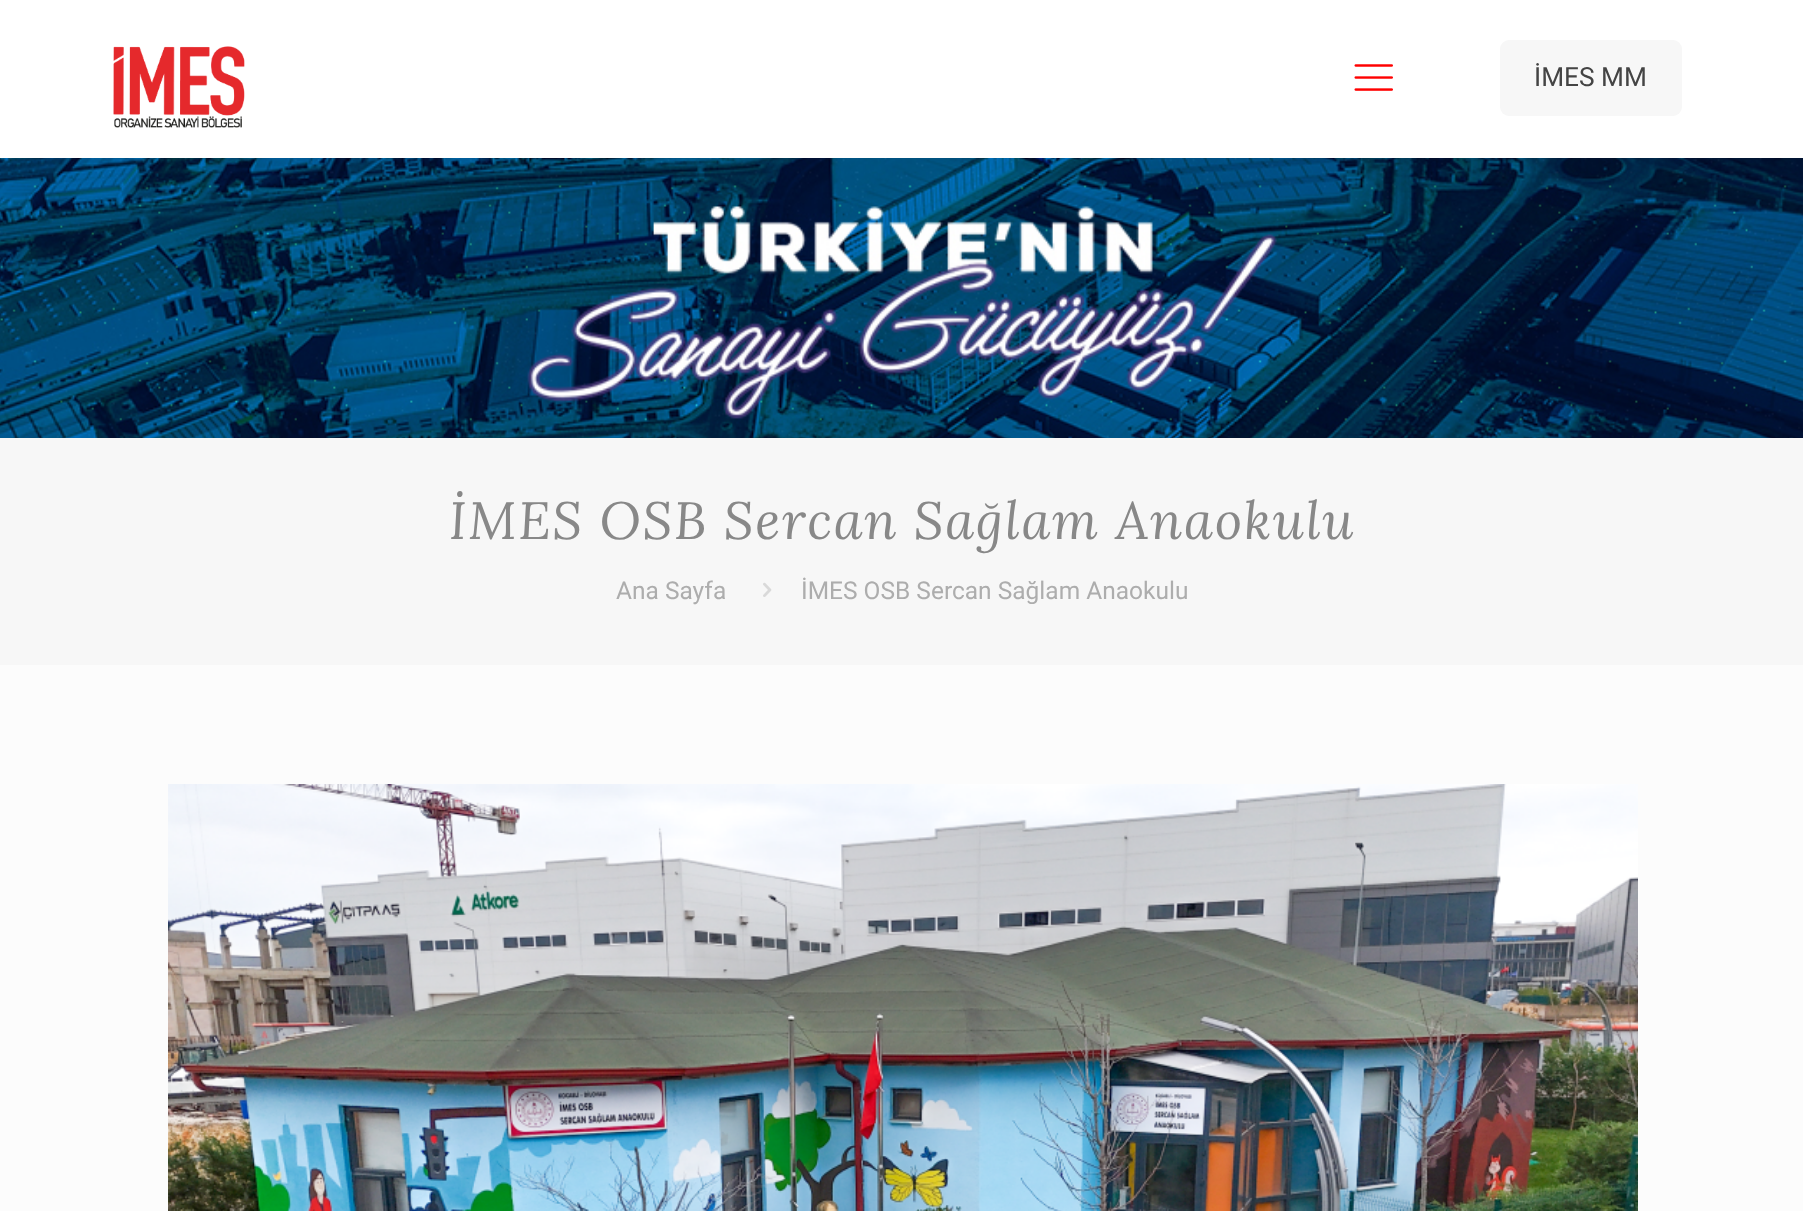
<svg xmlns="http://www.w3.org/2000/svg" width="1803" height="1211" viewBox="0 0 1803 1211">
  <style>
    .t1 { font: 26.25px Roboto; fill: #444; }
    .t2 { font: italic 52.5px Lora; letter-spacing: 1.75px; fill: #888; }
    .t3 { font: 24.5px Roboto; fill: #adadad; }
  </style>
  <rect width="100%" height="100%" fill="#fcfcfc"/>
  <image x="0" y="158" width="1803" height="280" href="images/1.png"/>
  <rect x="0" y="0" width="1803" height="158" fill="#fff"/>
  <image x="113" y="46" width="132" height="82" href="images/2.png"/>
  <image x="1354" y="64" width="39" height="27" href="images/3.png"/>
  <rect x="1500" y="40" width="182" height="76" rx="9" fill="#f7f7f7"/>
  <text x="1534" y="86" class="t1">İMES MM</text>
  <rect x="0" y="438" width="1803" height="227" fill="#f7f7f7"/>
  <text x="449" y="539" class="t2">İMES OSB Sercan Sağlam Anaokulu</text>
  <text x="616" y="599" class="t3">Ana Sayfa</text>
  <image x="763" y="582" width="9" height="15" href="images/4.png"/>
  <text x="801" y="599" class="t3">İMES OSB Sercan Sağlam Anaokulu</text>
  <image x="168" y="784" width="1470" height="427" href="images/5.png"/>
</svg>
